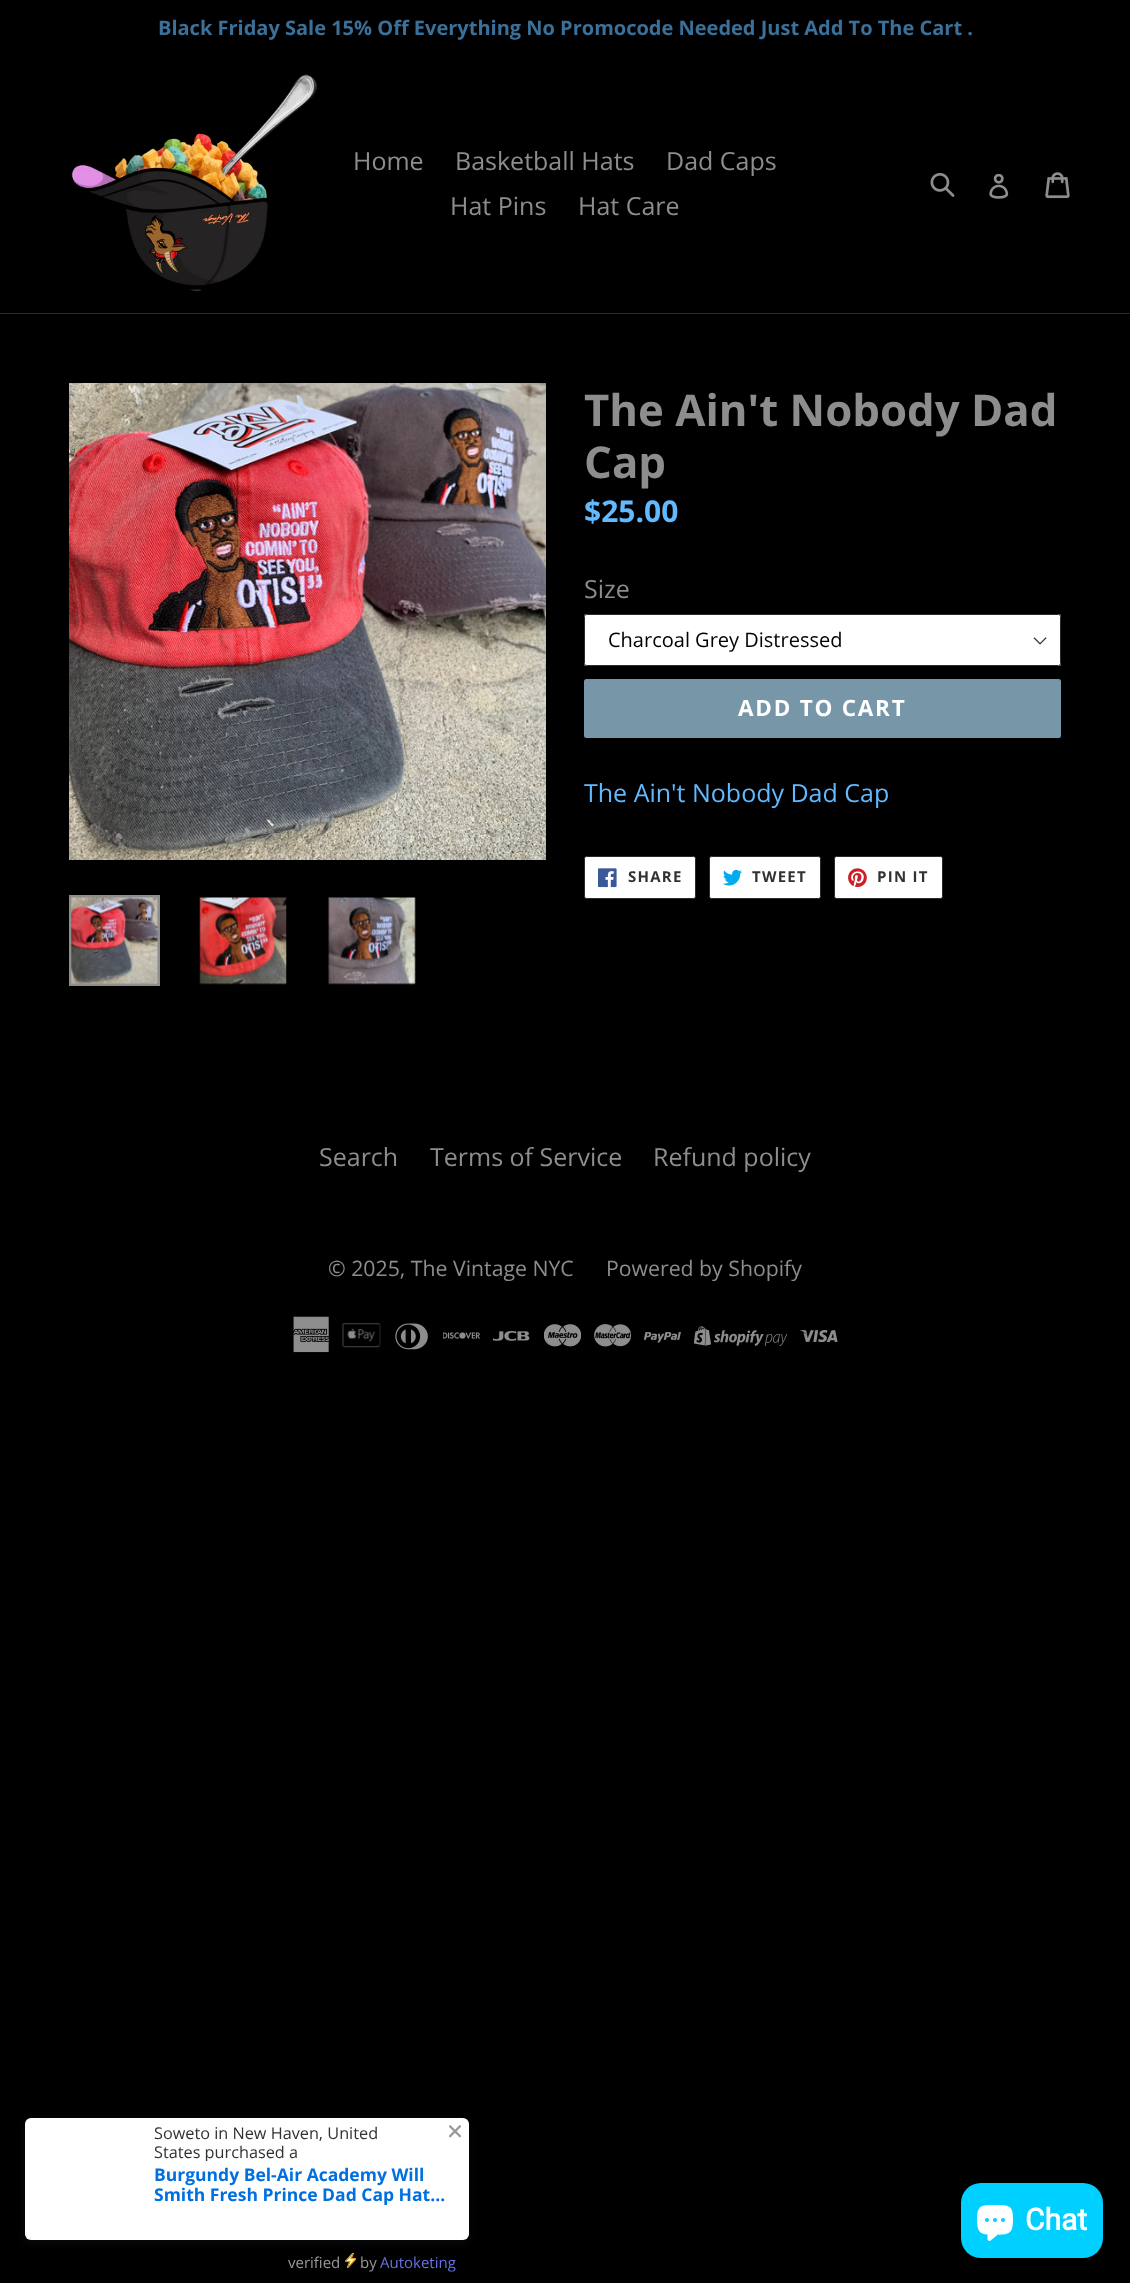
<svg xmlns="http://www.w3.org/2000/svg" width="1130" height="2283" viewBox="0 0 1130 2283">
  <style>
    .t1 { font: bold 20px Open Sans; fill: #3a7099; }
    .t2 { font: 25px Open Sans; fill: #8d8d8d; }
    .t3 { font: bold 43.75px Open Sans; fill: #8d8d8d; }
    .t4 { font: bold 30px Open Sans; fill: #61baff; }
    .t5 { font: 20px Open Sans; fill: #000; }
    .t6 { font: bold 22.5px Open Sans; letter-spacing: 1.75px; fill: #fff; }
    .t7 { font: 25px Open Sans; fill: #61baff; }
    .t8 { font: bold 15px Open Sans; letter-spacing: 1.25px; fill: #323232; }
    .t9 { font: 21.25px Open Sans; fill: #8d8d8d; }
    .t10 { font: 16.25px Open Sans; fill: #323232; }
    .t11 { font: bold 17.5px Open Sans; fill: #0070e0; }
    .t12 { font: 15px Open Sans; fill: #999; }
    .t13 { font: 15px Open Sans; fill: #6772e5; }
    .t14 { font: bold 30px Roboto; fill: #fff; }
  </style>
  <defs>
    <clipPath id="clip1"><rect x="154" y="2124" width="262" height="37"/></clipPath>
    <clipPath id="clip2"><rect x="154" y="2165" width="300" height="40"/></clipPath>
  </defs>
  <rect width="100%" height="100%" fill="#000"/>
  <text x="158" y="35" class="t1">Black Friday Sale 15% Off Everything No Promocode Needed Just Add To The Cart .</text>
  <rect x="0" y="313" width="1130" height="1" fill="#2b2b2b"/>
  <image x="71" y="74" width="247" height="218" href="images/1.png"/>
  <text x="353" y="170" class="t2">Home</text>
  <text x="455" y="170" class="t2">Basketball Hats</text>
  <text x="666" y="170" class="t2">Dad Caps</text>
  <text x="450" y="215" class="t2">Hat Pins</text>
  <text x="578" y="215" class="t2">Hat Care</text>
  <image x="930" y="173" width="25" height="24" href="images/2.png"/>
  <image x="989" y="174" width="20" height="25" href="images/3.png"/>
  <image x="1045" y="172" width="25" height="27" href="images/4.png"/>
  <image x="69" y="383" width="477" height="477" href="images/5.png"/>
  <rect x="70.5" y="896.5" width="88" height="88" fill="none" stroke="#8d8d8d" stroke-width="3"/>
  <image x="71" y="897" width="88" height="88" href="images/6.png"/>
  <image x="199" y="897" width="88" height="88" href="images/7.png"/>
  <image x="328" y="897" width="88" height="88" href="images/8.png"/>
  <text x="584" y="426" class="t3">The Ain't Nobody Dad</text>
  <text x="584" y="478" class="t3">Cap</text>
  <text x="584" y="522" class="t4">$25.00</text>
  <text x="584" y="598" class="t2">Size</text>
  <rect x="584" y="614" width="477" height="52" rx="2.5" fill="#fff"/>
  <image x="1033" y="637" width="14" height="8" href="images/9.png"/>
  <rect x="584.5" y="614.5" width="476" height="51" rx="2" fill="none" stroke="#2b2b2b"/>
  <text x="608" y="647" class="t5">Charcoal Grey Distressed</text>
  <rect x="584" y="679" width="477" height="59" rx="2.5" fill="#7796a8"/>
  <text x="738" y="716" class="t6">ADD TO CART</text>
  <text x="584" y="802" class="t7">The Ain't Nobody Dad Cap</text>
  <rect x="584.5" y="856.5" width="111" height="42" rx="2" fill="#fff" stroke="#2b2b2b"/>
  <image x="598" y="868" width="19" height="20" href="images/10.png"/>
  <text x="628" y="882" class="t8">SHARE</text>
  <rect x="709.5" y="856.5" width="111" height="42" rx="2" fill="#fff" stroke="#2b2b2b"/>
  <image x="723" y="869" width="19" height="17" href="images/11.png"/>
  <text x="752" y="882" class="t8">TWEET</text>
  <rect x="834.5" y="856.5" width="108" height="42" rx="2" fill="#fff" stroke="#2b2b2b"/>
  <image x="848" y="868" width="19" height="20" href="images/12.png"/>
  <text x="877" y="882" class="t8">PIN IT</text>
  <text x="319" y="1166" class="t2">Search</text>
  <text x="430" y="1166" class="t2">Terms of Service</text>
  <text x="653" y="1166" class="t2">Refund policy</text>
  <text x="328" y="1276" class="t9">© 2025, The Vintage NYC</text>
  <text x="606" y="1276" class="t9">Powered by Shopify</text>
  <image x="293" y="1316" width="36" height="37" href="images/13.png"/>
  <image x="342" y="1323" width="39" height="25" href="images/14.png"/>
  <image x="395" y="1323" width="33" height="27" href="images/15.png"/>
  <image x="443" y="1332" width="37" height="7" href="images/16.png"/>
  <image x="493" y="1331" width="37" height="10" href="images/17.png"/>
  <image x="544" y="1324" width="37" height="23" href="images/18.png"/>
  <image x="594" y="1324" width="37" height="23" href="images/19.png"/>
  <image x="644" y="1332" width="37" height="11" href="images/20.png"/>
  <image x="694" y="1326" width="94" height="20" href="images/21.png"/>
  <image x="800" y="1330" width="38" height="13" href="images/22.png"/>
  <rect x="24" y="2120" width="444" height="123" rx="6" fill="#1e20284d" filter="blur(4px)"/>
  <rect x="25" y="2118" width="444" height="122" rx="6" fill="#fff"/>
  <text x="154" y="2139" class="t10">Soweto in New Haven, United</text>
  <g clip-path="url(#clip1)">
    <text x="154" y="2158" class="t10">States purchased a</text>
  </g>
  <text x="154" y="2181" class="t11">Burgundy Bel-Air Academy Will</text>
  <g clip-path="url(#clip2)">
    <text x="154" y="2201" class="t11">Smith Fresh Prince Dad Cap Hat…</text>
  </g>
  <image x="449" y="2125" width="12" height="13" href="images/23.png"/>
  <text x="288" y="2268" class="t12">verified</text>
  <image x="345" y="2253" width="11" height="15" href="images/24.png"/>
  <text x="360" y="2268" class="t12">by</text>
  <text x="380" y="2268" class="t13">Autoketing</text>
  <rect x="961" y="2183" width="142" height="75" rx="20" fill="#00d0ff"/>
  <image x="977" y="2205" width="36" height="36" href="images/25.png"/>
  <text x="1025" y="2230" class="t14">Chat</text>
</svg>
